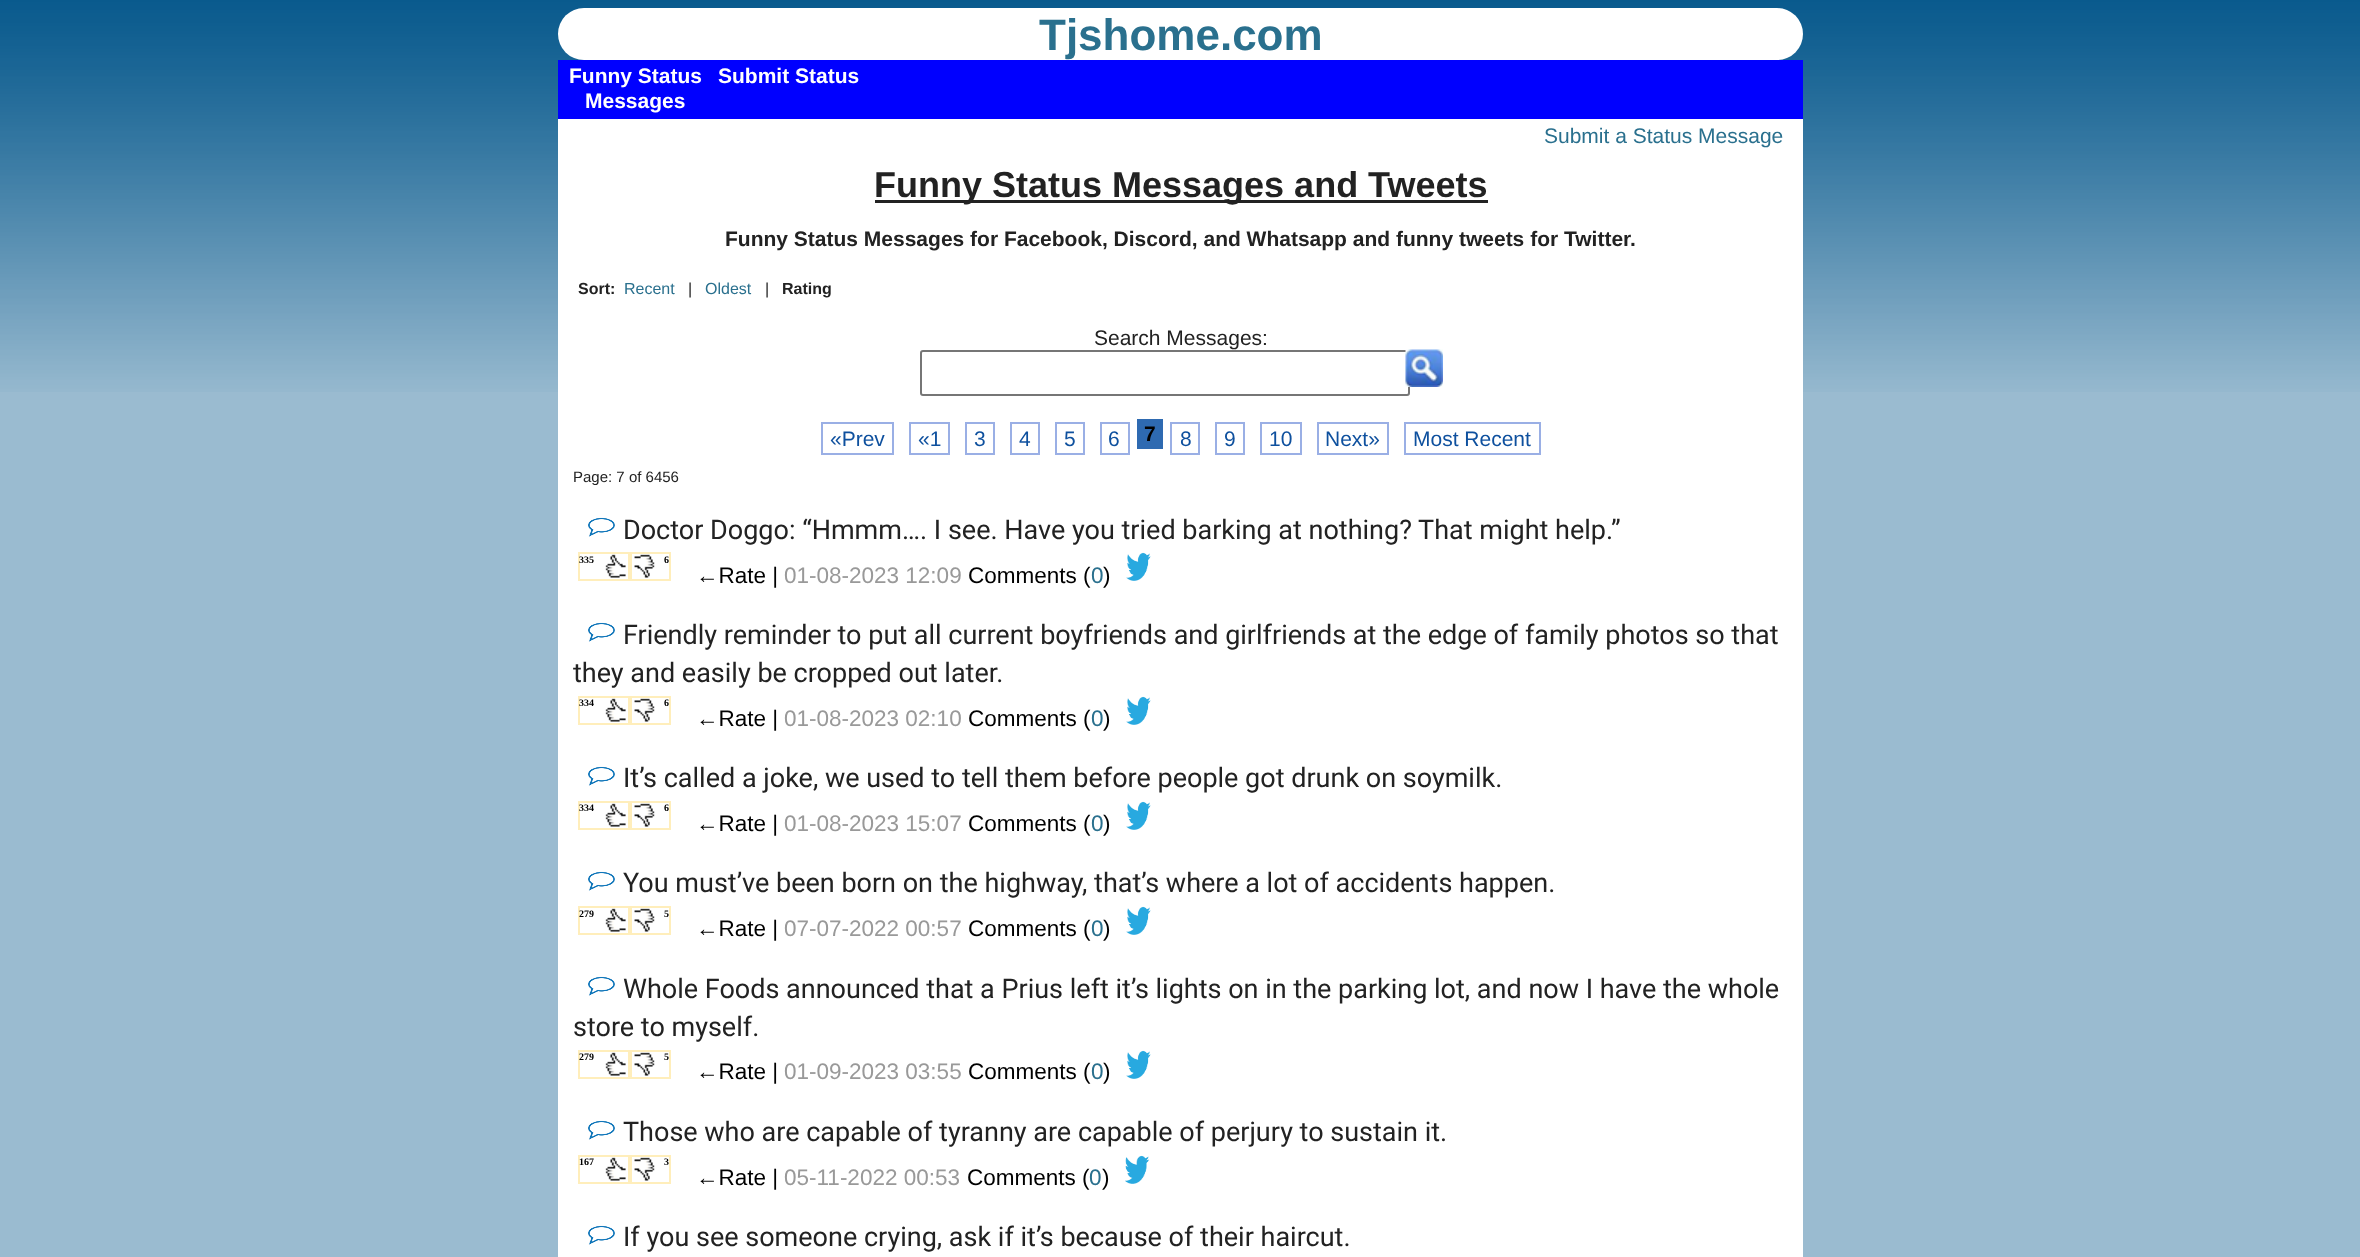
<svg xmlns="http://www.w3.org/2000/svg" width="2360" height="1257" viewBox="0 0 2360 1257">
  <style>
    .t1 { font: bold 44px Liberation Sans; fill: #2a708e; }
    .t2 { font: bold 21px Liberation Sans; fill: #fff; }
    .t3 { font: 21px Liberation Sans; fill: #2a708e; }
    .t4 { font: bold 36px Liberation Sans; fill: #222; }
    .t5 { font: bold 21px Liberation Sans; fill: #222; }
    .t6 { font: bold 16px Liberation Sans; fill: #222; }
    .t7 { font: 16px Liberation Sans; fill: #2a708e; }
    .t8 { font: 16px Liberation Sans; fill: #222; }
    .t9 { font: 21px Liberation Sans; fill: #222; }
    .t10 { font: 21px Liberation Sans; fill: #0e509e; }
    .t11 { font: bold 21px Liberation Sans; fill: #000; }
    .t12 { font: 15px Liberation Sans; fill: #222; }
    .t13 { font: 27px Roboto; fill: #222; }
    .t14 { font: bold 10px Liberation Serif; fill: #000; }
    .t15 { font: 22.5px Liberation Sans; fill: #000; }
    .t16 { font: 22.5px Liberation Sans; fill: #999; }
    .t17 { font: 22.5px Liberation Sans; fill: #2a708e; }
  </style>
  <rect width="100%" height="100%" fill="#9abbd0"/>
  <image x="0" y="0" width="2360" height="392" href="images/1.png"/>
  <rect x="558" y="8" width="1245" height="52" rx="26" fill="#fff"/>
  <text x="1039" y="50" class="t1">Tjshome.com</text>
  <rect x="558" y="60" width="1245" height="59" fill="#00f"/>
  <text x="569" y="83" class="t2">Funny Status</text>
  <text x="585" y="108" class="t2">Messages</text>
  <text x="718" y="83" class="t2">Submit Status</text>
  <rect x="558" y="119" width="1245" height="1138" fill="#fff"/>
  <text x="1544" y="143" class="t3">Submit a Status Message</text>
  <rect x="875" y="200" width="613" height="3" fill="#222"/>
  <text x="874" y="197" class="t4">Funny Status Messages and Tweets</text>
  <text x="725" y="246" class="t5">Funny Status Messages for Facebook, Discord, and Whatsapp and funny tweets for Twitter.</text>
  <text x="578" y="294" class="t6">Sort:</text>
  <text x="624" y="294" class="t7">Recent</text>
  <text x="688" y="294" class="t8">|</text>
  <text x="705" y="294" class="t7">Oldest</text>
  <text x="765" y="294" class="t8">|</text>
  <text x="782" y="294" class="t6">Rating</text>
  <text x="1094" y="345" class="t9">Search Messages:</text>
  <rect x="921" y="351" width="488" height="44" rx="2" fill="none" stroke="#767676" stroke-width="2"/>
  <image x="1405" y="349" width="38" height="38" href="images/2.png"/>
  <rect x="822" y="423" width="71" height="31" fill="none" stroke="#9aafe5" stroke-width="2"/>
  <text x="830" y="446" class="t10">«Prev</text>
  <rect x="910" y="423" width="39" height="31" fill="none" stroke="#9aafe5" stroke-width="2"/>
  <text x="918" y="446" class="t10">«1</text>
  <rect x="966" y="423" width="28" height="31" fill="none" stroke="#9aafe5" stroke-width="2"/>
  <text x="974" y="446" class="t10">3</text>
  <rect x="1011" y="423" width="28" height="31" fill="none" stroke="#9aafe5" stroke-width="2"/>
  <text x="1019" y="446" class="t10">4</text>
  <rect x="1056" y="423" width="28" height="31" fill="none" stroke="#9aafe5" stroke-width="2"/>
  <text x="1064" y="446" class="t10">5</text>
  <rect x="1101" y="423" width="28" height="31" fill="none" stroke="#9aafe5" stroke-width="2"/>
  <text x="1108" y="446" class="t10">6</text>
  <rect x="1137" y="419" width="26" height="30" fill="#2e6ab1"/>
  <text x="1144" y="441" class="t11">7</text>
  <rect x="1171" y="423" width="28" height="31" fill="none" stroke="#9aafe5" stroke-width="2"/>
  <text x="1180" y="446" class="t10">8</text>
  <rect x="1216" y="423" width="28" height="31" fill="none" stroke="#9aafe5" stroke-width="2"/>
  <text x="1224" y="446" class="t10">9</text>
  <rect x="1261" y="423" width="40" height="31" fill="none" stroke="#9aafe5" stroke-width="2"/>
  <text x="1269" y="446" class="t10">10</text>
  <rect x="1318" y="423" width="70" height="31" fill="none" stroke="#9aafe5" stroke-width="2"/>
  <text x="1325" y="446" class="t10">Next»</text>
  <rect x="1405" y="423" width="135" height="31" fill="none" stroke="#9aafe5" stroke-width="2"/>
  <text x="1413" y="446" class="t10">Most Recent</text>
  <text x="573" y="482" class="t12">Page: 7 of 6456</text>
  <image x="588" y="517" width="27" height="20" href="images/3.png"/>
  <text x="623" y="539" class="t13">Doctor Doggo: “Hmmm…. I see. Have you tried barking at nothing? That might help.”</text>
  <image x="605" y="554" width="21" height="24" href="images/4.png"/>
  <rect x="579" y="553" width="50" height="27" fill="none" stroke="#feb" stroke-width="2"/>
  <text x="579" y="563" class="t14">335</text>
  <image x="634" y="554" width="21" height="24" href="images/5.png"/>
  <rect x="631" y="553" width="39" height="27" fill="none" stroke="#feb" stroke-width="2"/>
  <text x="664" y="563" class="t14">6</text>
  <text x="696" y="583" class="t15">←Rate |</text>
  <text x="784" y="583" class="t16">01-08-2023 12:09</text>
  <text x="968" y="583" class="t15">Comments (</text>
  <text x="1091" y="583" class="t17">0</text>
  <text x="1103" y="583" class="t15">)</text>
  <image x="1126" y="552" width="25" height="29" href="images/6.png"/>
  <image x="588" y="622" width="27" height="20" href="images/3.png"/>
  <text x="623" y="644" class="t13">Friendly reminder to put all current boyfriends and girlfriends at the edge of family photos so that</text>
  <text x="573" y="682" class="t13">they and easily be cropped out later.</text>
  <image x="605" y="698" width="21" height="24" href="images/4.png"/>
  <rect x="579" y="697" width="50" height="27" fill="none" stroke="#feb" stroke-width="2"/>
  <text x="579" y="706" class="t14">334</text>
  <image x="634" y="698" width="21" height="24" href="images/5.png"/>
  <rect x="631" y="697" width="39" height="27" fill="none" stroke="#feb" stroke-width="2"/>
  <text x="664" y="706" class="t14">6</text>
  <text x="696" y="726" class="t15">←Rate |</text>
  <text x="784" y="726" class="t16">01-08-2023 02:10</text>
  <text x="968" y="726" class="t15">Comments (</text>
  <text x="1091" y="726" class="t17">0</text>
  <text x="1103" y="726" class="t15">)</text>
  <image x="1126" y="696" width="25" height="29" href="images/6.png"/>
  <image x="588" y="766" width="27" height="20" href="images/3.png"/>
  <text x="623" y="787" class="t13">It’s called a joke, we used to tell them before people got drunk on soymilk.</text>
  <image x="605" y="803" width="21" height="24" href="images/4.png"/>
  <rect x="579" y="802" width="50" height="27" fill="none" stroke="#feb" stroke-width="2"/>
  <text x="579" y="811" class="t14">334</text>
  <image x="634" y="803" width="21" height="24" href="images/5.png"/>
  <rect x="631" y="802" width="39" height="27" fill="none" stroke="#feb" stroke-width="2"/>
  <text x="664" y="811" class="t14">6</text>
  <text x="696" y="831" class="t15">←Rate |</text>
  <text x="784" y="831" class="t16">01-08-2023 15:07</text>
  <text x="968" y="831" class="t15">Comments (</text>
  <text x="1091" y="831" class="t17">0</text>
  <text x="1103" y="831" class="t15">)</text>
  <image x="1126" y="801" width="25" height="29" href="images/6.png"/>
  <image x="588" y="871" width="27" height="20" href="images/3.png"/>
  <text x="623" y="892" class="t13">You must’ve been born on the highway, that’s where a lot of accidents happen.</text>
  <image x="605" y="908" width="21" height="24" href="images/4.png"/>
  <rect x="579" y="907" width="50" height="27" fill="none" stroke="#feb" stroke-width="2"/>
  <text x="579" y="917" class="t14">279</text>
  <image x="634" y="908" width="21" height="24" href="images/5.png"/>
  <rect x="631" y="907" width="39" height="27" fill="none" stroke="#feb" stroke-width="2"/>
  <text x="664" y="917" class="t14">5</text>
  <text x="696" y="936" class="t15">←Rate |</text>
  <text x="784" y="936" class="t16">07-07-2022 00:57</text>
  <text x="968" y="936" class="t15">Comments (</text>
  <text x="1091" y="936" class="t17">0</text>
  <text x="1103" y="936" class="t15">)</text>
  <image x="1126" y="906" width="25" height="29" href="images/6.png"/>
  <image x="588" y="976" width="27" height="20" href="images/3.png"/>
  <text x="623" y="998" class="t13">Whole Foods announced that a Prius left it’s lights on in the parking lot, and now I have the whole</text>
  <text x="573" y="1036" class="t13">store to myself.</text>
  <image x="605" y="1052" width="21" height="24" href="images/4.png"/>
  <rect x="579" y="1051" width="50" height="27" fill="none" stroke="#feb" stroke-width="2"/>
  <text x="579" y="1060" class="t14">279</text>
  <image x="634" y="1052" width="21" height="24" href="images/5.png"/>
  <rect x="631" y="1051" width="39" height="27" fill="none" stroke="#feb" stroke-width="2"/>
  <text x="664" y="1060" class="t14">5</text>
  <text x="696" y="1079" class="t15">←Rate |</text>
  <text x="784" y="1079" class="t16">01-09-2023 03:55</text>
  <text x="968" y="1079" class="t15">Comments (</text>
  <text x="1091" y="1079" class="t17">0</text>
  <text x="1103" y="1079" class="t15">)</text>
  <image x="1126" y="1050" width="25" height="29" href="images/6.png"/>
  <image x="588" y="1120" width="27" height="20" href="images/3.png"/>
  <text x="623" y="1141" class="t13">Those who are capable of tyranny are capable of perjury to sustain it.</text>
  <image x="605" y="1157" width="21" height="24" href="images/4.png"/>
  <rect x="579" y="1156" width="50" height="27" fill="none" stroke="#feb" stroke-width="2"/>
  <text x="579" y="1165" class="t14">167</text>
  <image x="634" y="1157" width="21" height="24" href="images/5.png"/>
  <rect x="631" y="1156" width="39" height="27" fill="none" stroke="#feb" stroke-width="2"/>
  <text x="664" y="1165" class="t14">3</text>
  <text x="696" y="1185" class="t15">←Rate |</text>
  <text x="784" y="1185" class="t16">05-11-2022 00:53</text>
  <text x="967" y="1185" class="t15">Comments (</text>
  <text x="1089" y="1185" class="t17">0</text>
  <text x="1102" y="1185" class="t15">)</text>
  <image x="1125" y="1155" width="25" height="29" href="images/7.png"/>
  <image x="588" y="1225" width="27" height="20" href="images/3.png"/>
  <text x="623" y="1246" class="t13">If you see someone crying, ask if it’s because of their haircut.</text>
</svg>
